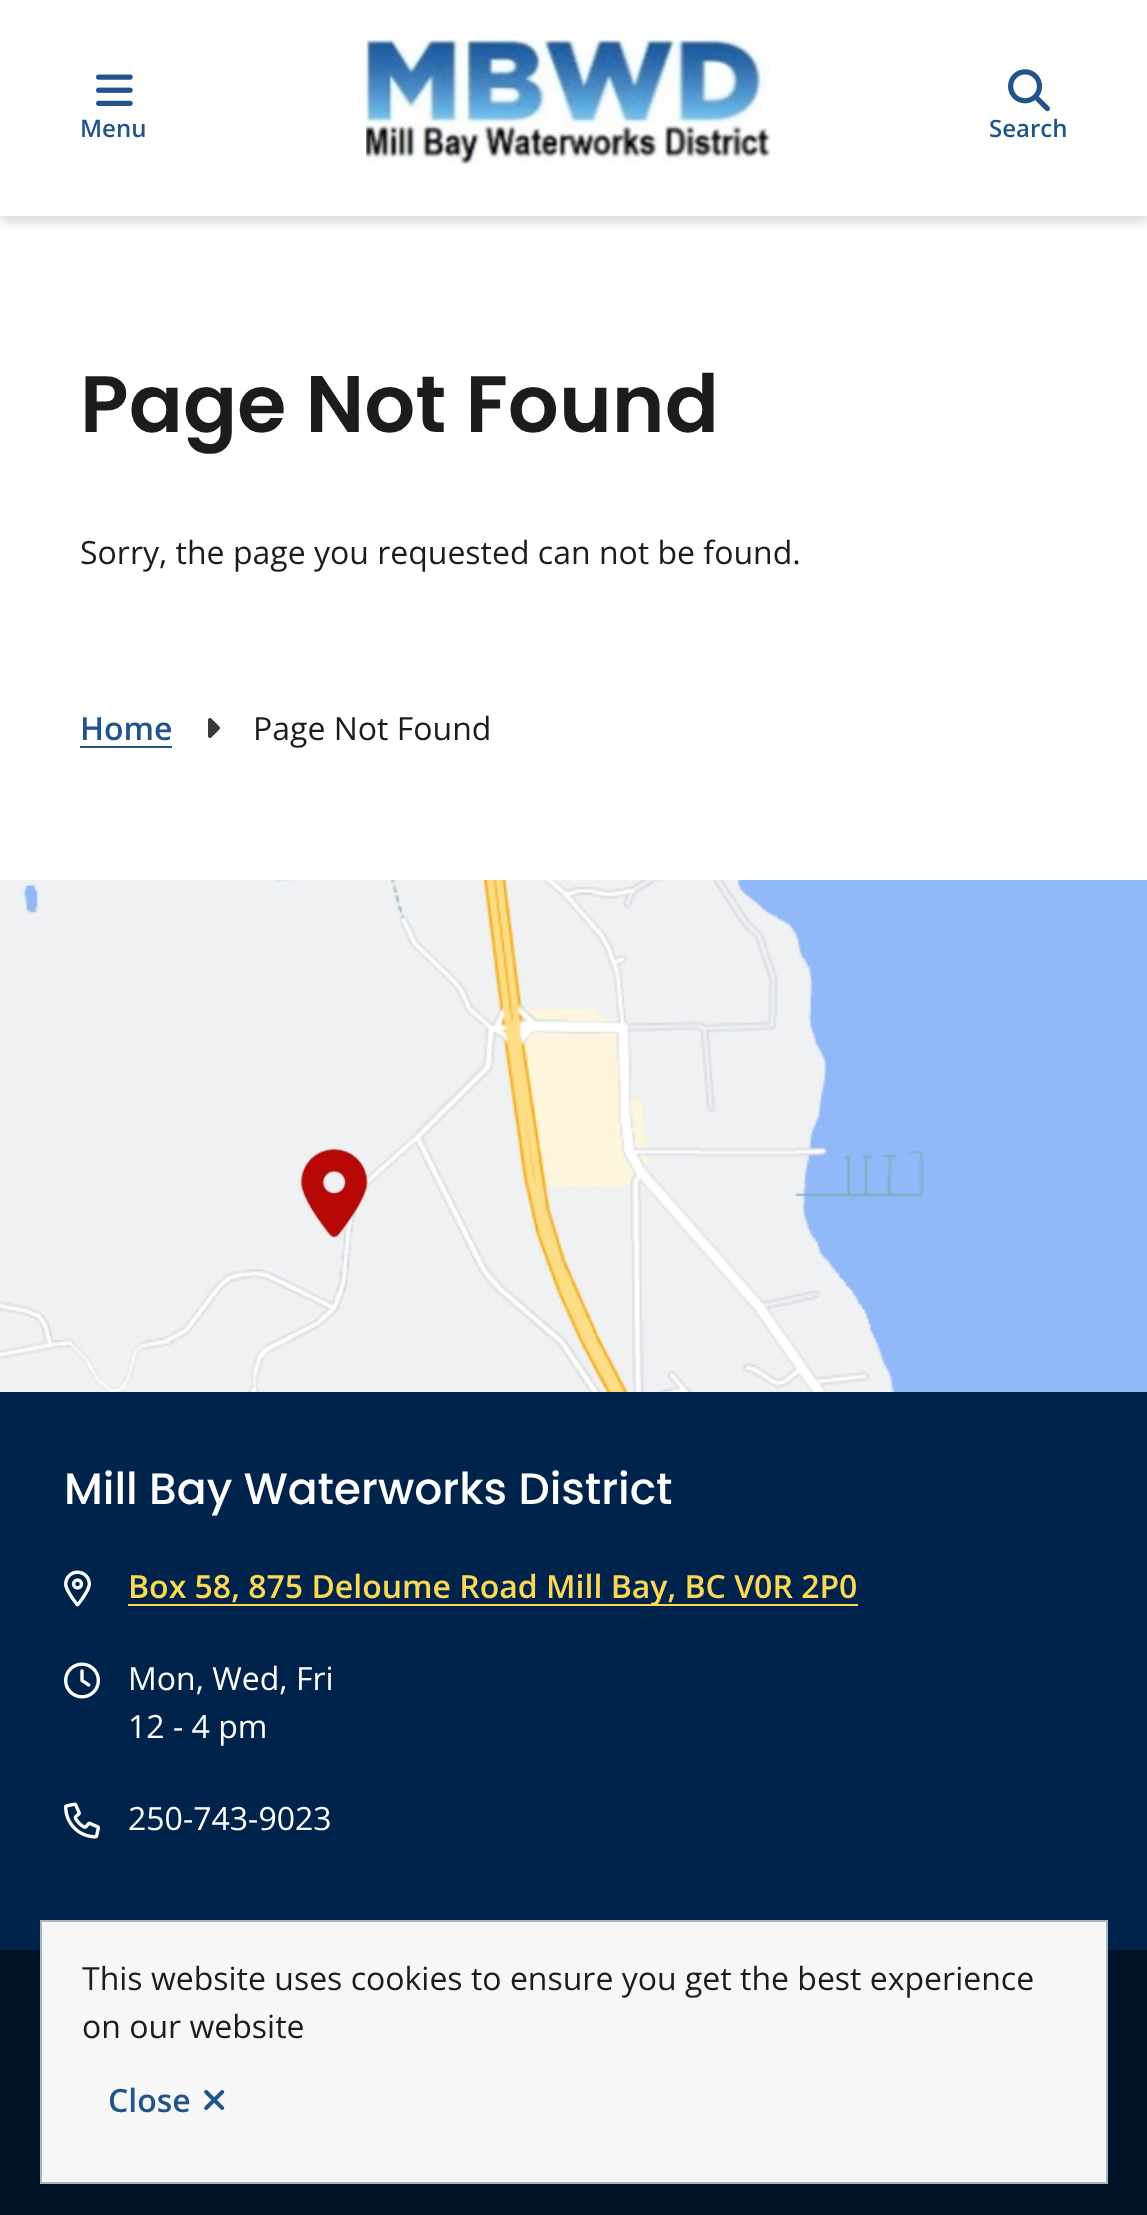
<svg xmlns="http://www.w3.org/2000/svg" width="1147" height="2215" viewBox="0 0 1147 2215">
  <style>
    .t1 { font: 600 24px Open Sans; fill: #21538d; }
    .t2 { font: 600 80px Poppins; fill: #1c1c1c; }
    .t3 { font: 32px Open Sans; fill: #1c1c1c; }
    .t4 { font: 600 32px Open Sans; fill: #21538d; }
    .t5 { font: 500 44px Poppins; fill: #fff; }
    .t6 { font: 600 32px Open Sans; fill: #fcd857; }
    .t7 { font: 32px Open Sans; fill: #fff; }
  </style>
  <defs>
    <clipPath id="clip1"><rect x="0" y="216" width="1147" height="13"/></clipPath>
  </defs>
  <rect width="100%" height="100%" fill="#fff"/>
  <g clip-path="url(#clip1)">
    <rect x="0" y="6" width="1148" height="216" fill="#00000026" filter="blur(6px)"/>
  </g>
  <image x="96" y="74" width="37" height="32" href="images/1.png"/>
  <text x="80" y="137" class="t1">Menu</text>
  <image x="366" y="40" width="404" height="124" href="images/2.png"/>
  <image x="1008" y="69" width="42" height="43" href="images/3.png"/>
  <text x="989" y="137" class="t1">Search</text>
  <text x="80" y="432" class="t2">Page Not Found</text>
  <text x="80" y="564" class="t3">Sorry, the page you requested can not be found.</text>
  <text x="80" y="740" class="t4">Home</text>
  <rect x="80" y="746" width="92" height="2" fill="#21538d"/>
  <image x="208" y="718" width="12" height="20" href="images/4.png"/>
  <text x="253" y="740" class="t3">Page Not Found</text>
  <rect x="0" y="1392" width="1147" height="558" fill="#00234b"/>
  <image x="0" y="880" width="1147" height="512" href="images/5.png"/>
  <text x="64" y="1504" class="t5">Mill Bay Waterworks District</text>
  <image x="64" y="1570" width="27" height="37" href="images/6.png"/>
  <rect x="128" y="1604" width="730" height="2" fill="#fcd857"/>
  <text x="128" y="1598" class="t6">Box 58, 875 Deloume Road Mill Bay, BC V0R 2P0</text>
  <image x="64" y="1662" width="36" height="37" href="images/7.png"/>
  <text x="128" y="1690" class="t7">Mon, Wed, Fri</text>
  <text x="128" y="1738" class="t7">12 - 4 pm</text>
  <image x="64" y="1802" width="36" height="37" href="images/8.png"/>
  <text x="128" y="1830" class="t7">250-743-9023</text>
  <rect x="0" y="1950" width="1147" height="265" fill="#001226"/>
  <rect x="41" y="1921" width="1066" height="262" fill="#f7f7f7" stroke="#a6b7c1" stroke-width="2"/>
  <text x="82" y="1990" class="t3">This website uses cookies to ensure you get the best experience</text>
  <text x="82" y="2038" class="t3">on our website</text>
  <text x="108" y="2112" class="t4">Close</text>
  <image x="204" y="2090" width="21" height="20" href="images/9.png"/>
</svg>
